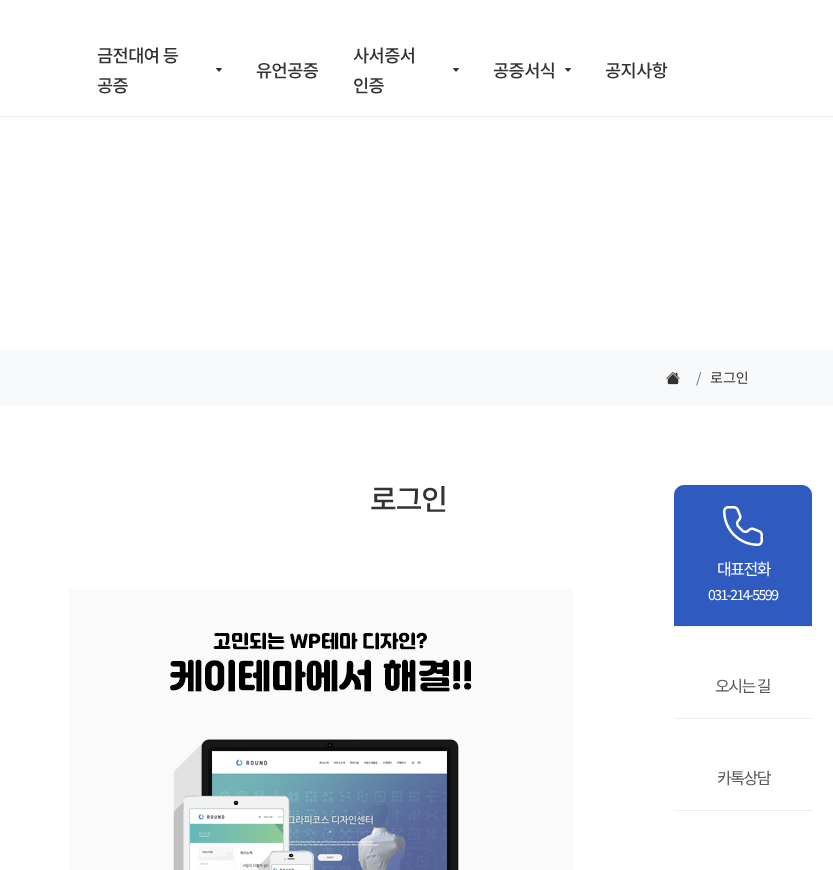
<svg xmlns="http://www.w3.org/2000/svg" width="833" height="870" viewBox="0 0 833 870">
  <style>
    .t1 { font: 500 17.5px Noto Sans KR; letter-spacing: -0.5px; fill: #333; }
    .t2 { font: 14px Noto Sans KR; fill: #6c757d; }
    .t3 { font: 14px Noto Sans KR; fill: #333; }
    .t4 { font: 500 29px Noto Sans KR; letter-spacing: -1px; fill: #333; }
    .t5 { font: 16px Noto Sans KR; letter-spacing: -1.5px; fill: #fff; }
    .t6 { font: 14px Noto Sans KR; letter-spacing: -1.5px; fill: #fff; }
    .t7 { font: 16px Noto Sans KR; letter-spacing: -1.5px; fill: #585858; }
  </style>
  <rect width="100%" height="100%" fill="#fff"/>
  <rect x="0" y="116" width="833" height="1" fill="#ebebeb"/>
  <text x="97" y="62" class="t1">금전대여 등</text>
  <image x="216" y="68" width="6" height="4" href="images/1.png"/>
  <text x="97" y="92" class="t1">공증</text>
  <text x="256" y="77" class="t1">유언공증</text>
  <text x="353" y="62" class="t1">사서증서</text>
  <image x="453" y="68" width="6" height="4" href="images/1.png"/>
  <text x="353" y="92" class="t1">인증</text>
  <text x="493" y="77" class="t1">공증서식</text>
  <image x="565" y="68" width="6" height="4" href="images/1.png"/>
  <text x="605" y="77" class="t1">공지사항</text>
  <rect x="0" y="350" width="833" height="56" fill="#f8f9fa"/>
  <image x="666" y="372" width="14" height="13" href="images/2.png"/>
  <text x="696" y="383" class="t2">/</text>
  <text x="710" y="383" class="t3">로그인</text>
  <text x="370" y="510" class="t4">로그인</text>
  <image x="69" y="589" width="504" height="281" href="images/3.png"/>
  <path d="M684 485H802C807.5 485 812 489.5 812 495V627H674V495C674 489.5 678.5 485 684 485Z" fill="#2f5bc1"/>
  <rect x="674" y="626" width="138" height="1" fill="#efefef"/>
  <image x="723" y="506" width="40" height="40" href="images/4.png"/>
  <text x="717" y="575" class="t5">대표전화</text>
  <text x="708" y="600" class="t6">031-214-5599</text>
  <rect x="674" y="718" width="138" height="1" fill="#efefef"/>
  <text x="715" y="692" class="t7">오시는 길</text>
  <rect x="674" y="810" width="138" height="1" fill="#efefef"/>
  <text x="717" y="784" class="t7">카톡상담</text>
</svg>
